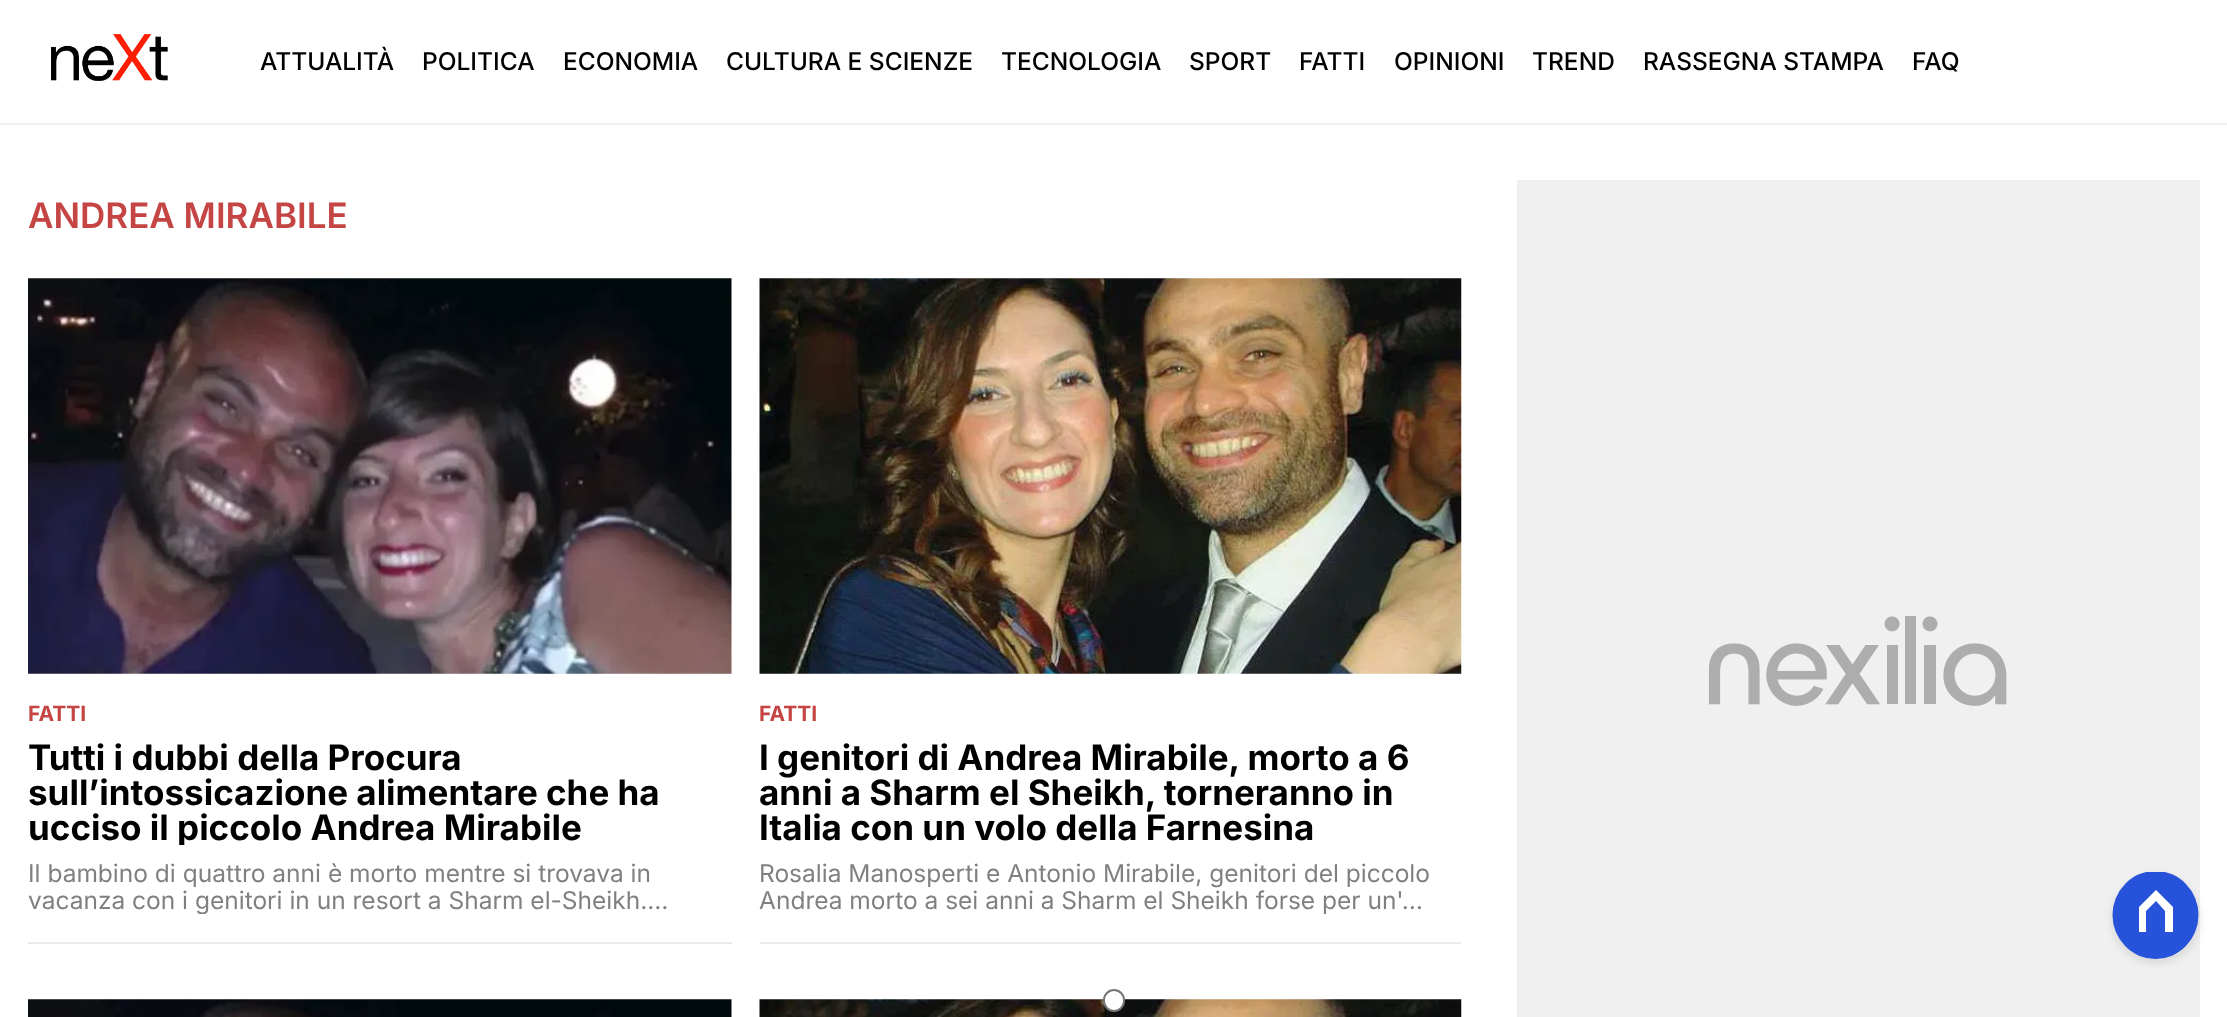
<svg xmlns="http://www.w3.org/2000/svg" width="2227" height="1017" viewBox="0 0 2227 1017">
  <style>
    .t1 { font: 500 24.5px Inter; fill: #000; }
    .t2 { font: 600 35px Inter; fill: #c54545; }
    .t3 { font: bold 21px Inter; fill: #c54545; }
    .t4 { font: bold 35px Inter; fill: #000; }
    .t5 { font: 24.5px Inter; fill: #808080; }
  </style>
  <defs>
    <clipPath id="clip1"><rect x="28" y="740" width="704" height="105"/></clipPath>
    <clipPath id="clip2"><rect x="28" y="859" width="704" height="55"/></clipPath>
    <clipPath id="clip3"><rect x="760" y="740" width="701" height="105"/></clipPath>
    <clipPath id="clip4"><rect x="2112" y="872" width="88" height="87"/></clipPath>
  </defs>
  <rect width="100%" height="100%" fill="#fff"/>
  <rect x="0" y="123" width="2227" height="2" fill="#efefef"/>
  <image x="51" y="34" width="117" height="47" href="images/1.png"/>
  <text x="260" y="70" class="t1">ATTUALITÀ</text>
  <text x="422" y="70" class="t1">POLITICA</text>
  <text x="563" y="70" class="t1">ECONOMIA</text>
  <text x="726" y="70" class="t1">CULTURA E SCIENZE</text>
  <text x="1001" y="70" class="t1">TECNOLOGIA</text>
  <text x="1189" y="70" class="t1">SPORT</text>
  <text x="1299" y="70" class="t1">FATTI</text>
  <text x="1394" y="70" class="t1">OPINIONI</text>
  <text x="1532" y="70" class="t1">TREND</text>
  <text x="1643" y="70" class="t1">RASSEGNA STAMPA</text>
  <text x="1912" y="70" class="t1">FAQ</text>
  <text x="28" y="228" class="t2">ANDREA MIRABILE</text>
  <rect x="28" y="942" width="704" height="2" fill="#ebebeb"/>
  <image x="28" y="278" width="704" height="396" href="images/2.png"/>
  <text x="28" y="721" class="t3">FATTI</text>
  <text x="28" y="770" class="t4">Tutti i dubbi della Procura</text>
  <text x="28" y="805" class="t4">sull’intossicazione alimentare che ha</text>
  <g clip-path="url(#clip1)">
    <text x="28" y="840" class="t4">ucciso il piccolo Andrea Mirabile</text>
  </g>
  <text x="28" y="882" class="t5">Il bambino di quattro anni è morto mentre si trovava in</text>
  <g clip-path="url(#clip2)">
    <text x="28" y="909" class="t5">vacanza con i genitori in un resort a Sharm el-Sheikh.…</text>
  </g>
  <rect x="760" y="942" width="701" height="2" fill="#ebebeb"/>
  <image x="759" y="278" width="703" height="396" href="images/3.png"/>
  <text x="759" y="721" class="t3">FATTI</text>
  <text x="759" y="770" class="t4">I genitori di Andrea Mirabile, morto a 6</text>
  <g clip-path="url(#clip3)">
    <text x="759" y="805" class="t4">anni a Sharm el Sheikh, torneranno in</text>
  </g>
  <text x="759" y="840" class="t4">Italia con un volo della Farnesina</text>
  <text x="759" y="882" class="t5">Rosalia Manosperti e Antonio Mirabile, genitori del piccolo</text>
  <text x="759" y="909" class="t5">Andrea morto a sei anni a Sharm el Sheikh forse per un'…</text>
  <image x="28" y="999" width="704" height="18" href="images/4.png"/>
  <image x="759" y="999" width="703" height="18" href="images/5.png"/>
  <image x="1517" y="180" width="683" height="837" href="images/6.png"/>
  <rect x="2112" y="875" width="88" height="88" rx="44" fill="#0000001a" filter="blur(4.5px)"/>
  <g clip-path="url(#clip4)">
    <ellipse cx="2155.5" cy="915" rx="43" ry="44" fill="#2653d9"/>
  </g>
  <path d="M2173 907L2156 890L2139 907V932H2146V911L2156 901L2165 911V932H2173Z" fill="#fff"/>
  <rect x="1104" y="990" width="20" height="21" rx="10" fill="#fff" stroke="#767676" stroke-width="2"/>
</svg>
